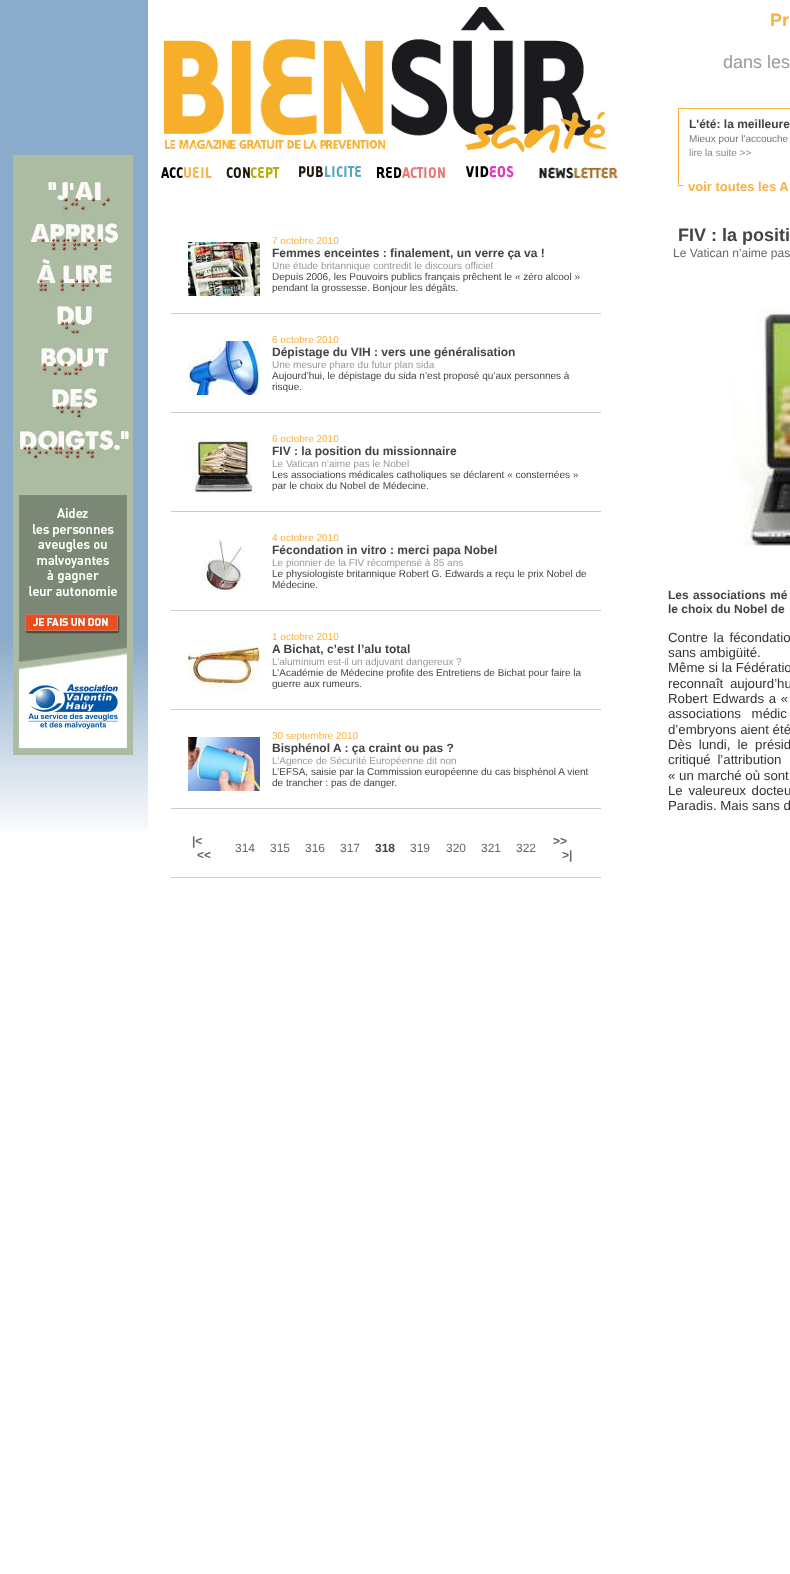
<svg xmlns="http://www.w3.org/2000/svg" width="790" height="1574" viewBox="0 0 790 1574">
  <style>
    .t1 { font: bold 18px Liberation Sans; fill: #fcb040; }
    .t2 { font: 18px Liberation Sans; fill: #999; }
    .t3 { font: bold 12px Liberation Sans; fill: #444; }
    .t4 { font: 10px Liberation Sans; fill: #777; }
    .t5 { font: 10px Liberation Sans; fill: #888; }
    .t6 { font: bold 13px Liberation Sans; fill: #fcb040; }
    .t7 { font: 10px Liberation Sans; fill: #fcb040; }
    .t8 { font: 10px Liberation Sans; fill: #999; }
    .t9 { font: 10px Liberation Sans; fill: #444; }
    .t10 { font: bold 12px Liberation Sans; fill: #666; }
    .t11 { font: 12px Liberation Sans; fill: #666; }
    .t12 { font: bold 18px Liberation Sans; fill: #444; }
    .t13 { font: 13.25px Liberation Sans; fill: #333; }
  </style>
  <rect width="100%" height="100%" fill="#fff"/>
  <image x="0" y="0" width="148" height="831" href="images/1.png"/>
  <image x="164" y="7" width="442" height="146" href="images/2.png"/>
  <image x="161" y="167" width="51" height="11" href="images/3.png"/>
  <image x="226" y="167" width="54" height="11" href="images/4.png"/>
  <image x="299" y="166" width="62" height="11" href="images/5.png"/>
  <image x="377" y="167" width="68" height="11" href="images/6.png"/>
  <image x="466" y="165" width="48" height="13" href="images/7.png"/>
  <image x="538" y="167" width="80" height="12" href="images/8.png"/>
  <text x="770" y="26" class="t1">Pr</text>
  <text x="723" y="68" class="t2">dans les</text>
  <rect x="678.5" y="108.5" width="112" height="77" fill="none" stroke="#fcb040"/>
  <text x="689" y="128" class="t3">L'été: la meilleure</text>
  <text x="689" y="142" class="t4">Mieux pour l'accouche</text>
  <text x="689" y="156" class="t5">lire la suite &gt;&gt;</text>
  <rect x="683" y="185" width="107" height="1" fill="#fff"/>
  <text x="688" y="191" class="t6">voir toutes les A</text>
  <image x="13" y="155" width="120" height="600" href="images/9.png"/>
  <rect x="171" y="313" width="430" height="1" fill="#ccc"/>
  <image x="188" y="242" width="72" height="54" href="images/10.png"/>
  <text x="272" y="244" class="t7">7 octobre 2010</text>
  <text x="272" y="257" class="t3">Femmes enceintes : finalement, un verre ça va !</text>
  <text x="272" y="269" class="t8">Une étude britannique contredit le discours officiel</text>
  <text x="272" y="280" class="t9">Depuis 2006, les Pouvoirs publics français prêchent le « zéro alcool »</text>
  <text x="272" y="291" class="t9">pendant la grossesse. Bonjour les dégâts.</text>
  <rect x="171" y="412" width="430" height="1" fill="#ccc"/>
  <image x="188" y="341" width="72" height="54" href="images/11.png"/>
  <text x="272" y="343" class="t7">6 octobre 2010</text>
  <text x="272" y="356" class="t3">Dépistage du VIH : vers une généralisation</text>
  <text x="272" y="368" class="t8">Une mesure phare du futur plan sida</text>
  <text x="272" y="379" class="t9">Aujourd’hui, le dépistage du sida n’est proposé qu’aux personnes à</text>
  <text x="272" y="390" class="t9">risque.</text>
  <rect x="171" y="511" width="430" height="1" fill="#ccc"/>
  <image x="188" y="440" width="65" height="54" href="images/12.png"/>
  <text x="272" y="442" class="t7">6 octobre 2010</text>
  <text x="272" y="455" class="t3">FIV : la position du missionnaire</text>
  <text x="272" y="467" class="t8">Le Vatican n’aime pas le Nobel</text>
  <text x="272" y="478" class="t9">Les associations médicales catholiques se déclarent « consternées »</text>
  <text x="272" y="489" class="t9">par le choix du Nobel de Médecine.</text>
  <rect x="171" y="610" width="430" height="1" fill="#ccc"/>
  <image x="202" y="539" width="44" height="54" href="images/13.png"/>
  <text x="272" y="541" class="t7">4 octobre 2010</text>
  <text x="272" y="554" class="t3">Fécondation in vitro : merci papa Nobel</text>
  <text x="272" y="566" class="t8">Le pionnier de la FIV récompensé à 85 ans</text>
  <text x="272" y="577" class="t9">Le physiologiste britannique Robert G. Edwards a reçu le prix Nobel de</text>
  <text x="272" y="588" class="t9">Médecine.</text>
  <rect x="171" y="709" width="430" height="1" fill="#ccc"/>
  <image x="188" y="638" width="72" height="54" href="images/14.png"/>
  <text x="272" y="640" class="t7">1 octobre 2010</text>
  <text x="272" y="653" class="t3">A Bichat, c’est l’alu total</text>
  <text x="272" y="665" class="t8">L’aluminium est-il un adjuvant dangereux ?</text>
  <text x="272" y="676" class="t9">L’Académie de Médecine profite des Entretiens de Bichat pour faire la</text>
  <text x="272" y="687" class="t9">guerre aux rumeurs.</text>
  <rect x="171" y="808" width="430" height="1" fill="#ccc"/>
  <image x="188" y="737" width="72" height="54" href="images/15.png"/>
  <text x="272" y="739" class="t7">30 septembre 2010</text>
  <text x="272" y="752" class="t3">Bisphénol A : ça craint ou pas ?</text>
  <text x="272" y="764" class="t8">L’Agence de Sécurité Européenne dit non</text>
  <text x="272" y="775" class="t9">L’EFSA, saisie par la Commission européenne du cas bisphénol A vient</text>
  <text x="272" y="786" class="t9">de trancher : pas de danger.</text>
  <rect x="171" y="877" width="430" height="1" fill="#ccc"/>
  <text x="192" y="845" class="t10">|&lt;</text>
  <text x="197" y="859" class="t10">&lt;&lt;</text>
  <text x="235" y="852" class="t11">314</text>
  <text x="270" y="852" class="t11">315</text>
  <text x="305" y="852" class="t11">316</text>
  <text x="340" y="852" class="t11">317</text>
  <text x="375" y="852" class="t3">318</text>
  <text x="410" y="852" class="t11">319</text>
  <text x="446" y="852" class="t11">320</text>
  <text x="481" y="852" class="t11">321</text>
  <text x="516" y="852" class="t11">322</text>
  <text x="553" y="845" class="t10">&gt;&gt;</text>
  <text x="562" y="859" class="t10">&gt;|</text>
  <text x="678" y="241" class="t12">FIV : la positi</text>
  <text x="673" y="257" class="t11">Le Vatican n’aime pas</text>
  <image x="731" y="306" width="59" height="241" href="images/16.png"/>
  <text x="668" y="599" word-spacing="1" class="t3">Les associations mé</text>
  <text x="668" y="613" class="t3">le choix du Nobel de</text>
  <text x="668" y="642" word-spacing="2" class="t13">Contre la fécondatio</text>
  <text x="668" y="657" class="t13">sans ambigüité.</text>
  <text x="668" y="672" class="t13">Même si la Fédératio</text>
  <text x="668" y="688" word-spacing="3" class="t13">reconnaît aujourd’hu</text>
  <text x="668" y="703" word-spacing="1" class="t13">Robert Edwards a «</text>
  <text x="668" y="718" word-spacing="7" class="t13">associations médic</text>
  <text x="668" y="734" class="t13">d’embryons aient été</text>
  <text x="668" y="749" word-spacing="3.5" class="t13">Dès lundi, le présid</text>
  <text x="668" y="764" word-spacing="3" class="t13">critiqué l’attribution</text>
  <text x="668" y="780" class="t13">« un marché où sont</text>
  <text x="668" y="795" word-spacing="2" class="t13">Le valeureux docteu</text>
  <text x="668" y="810" class="t13">Paradis. Mais sans d</text>
</svg>
